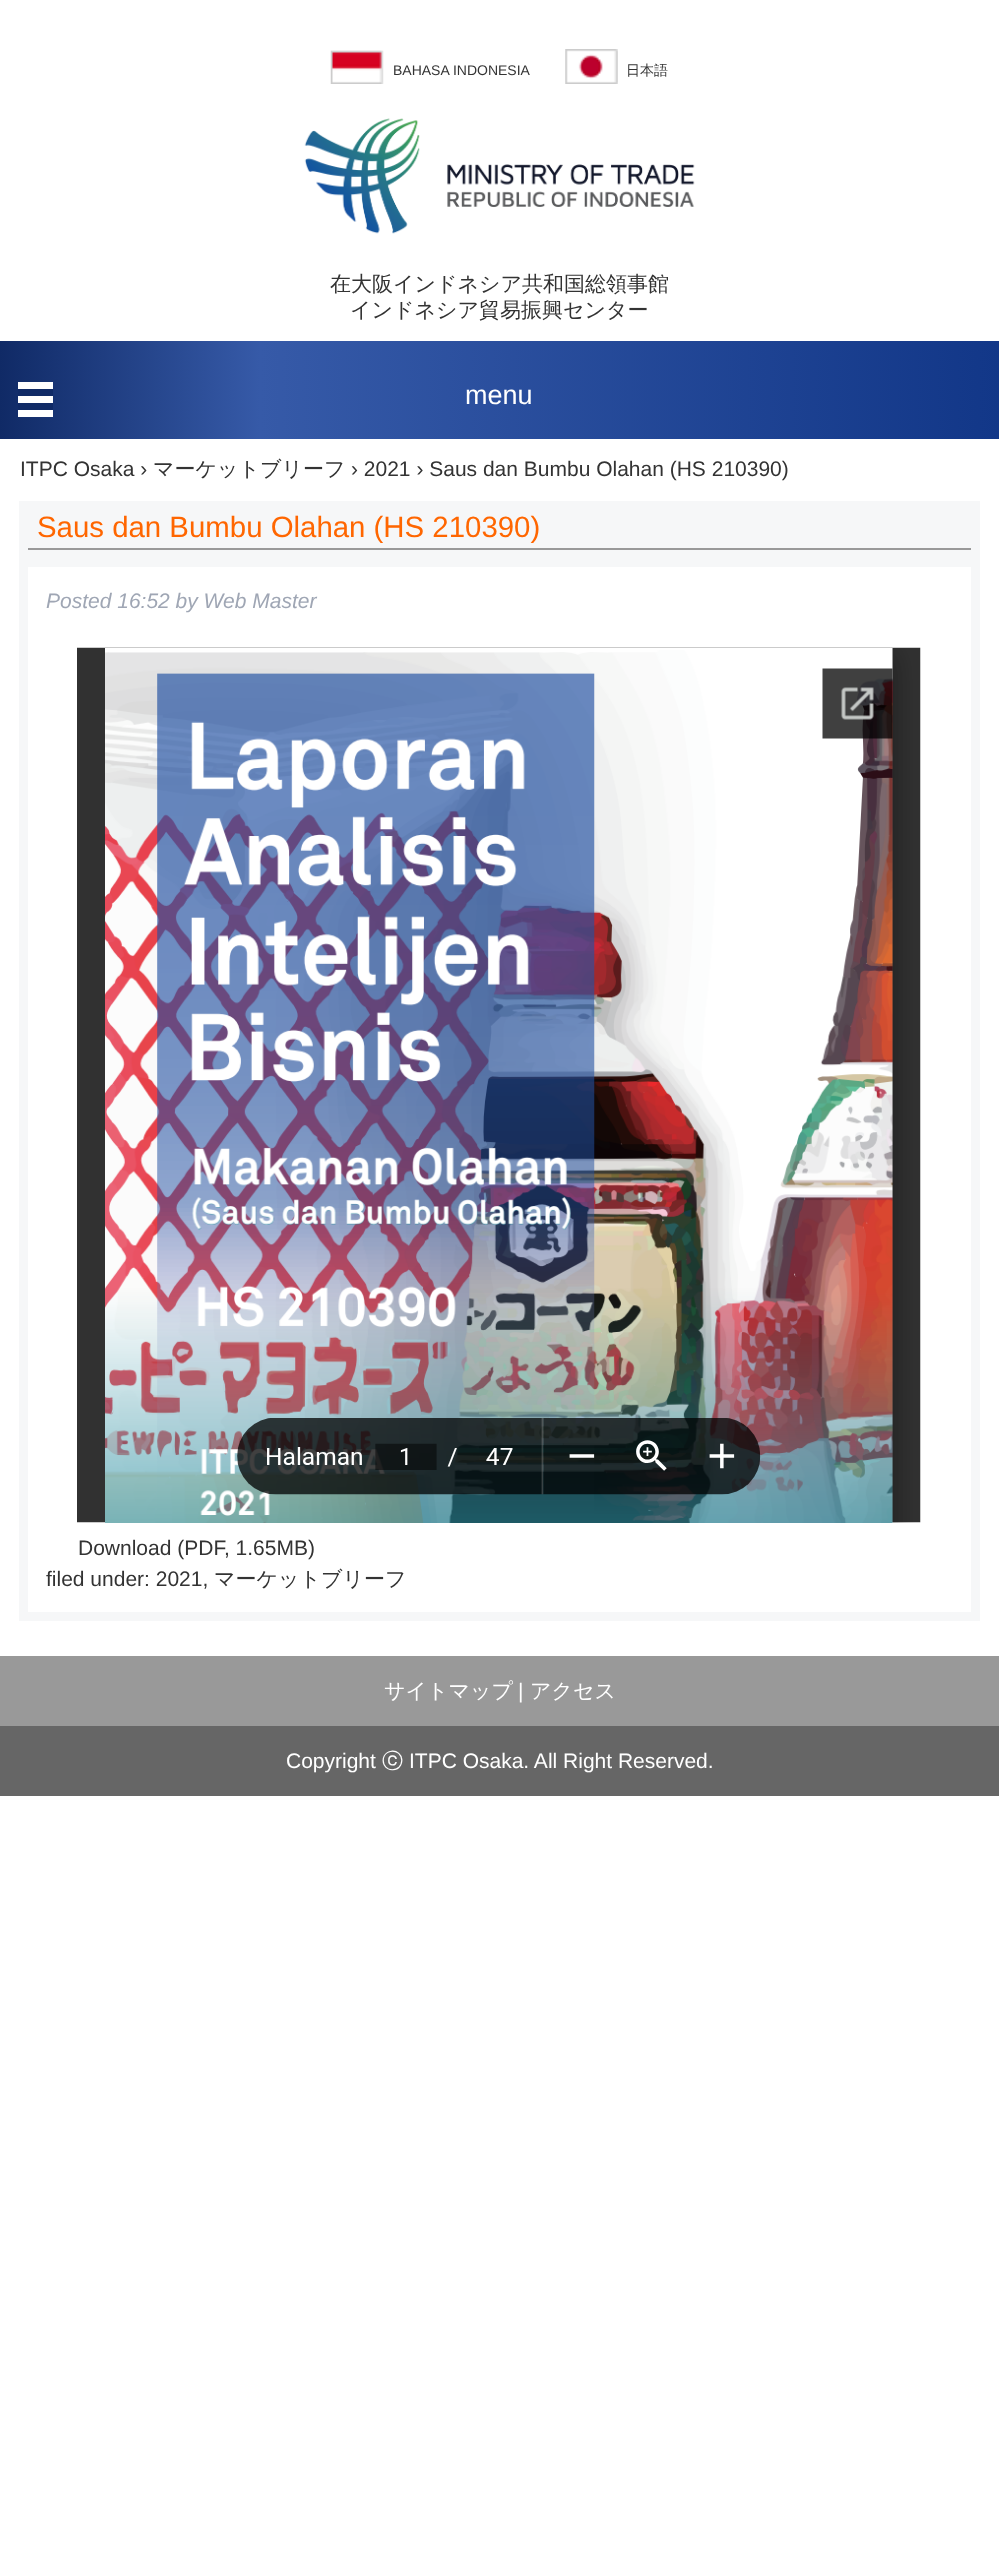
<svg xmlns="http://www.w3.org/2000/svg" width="999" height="2550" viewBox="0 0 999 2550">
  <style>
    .t1 { font: 14px Liberation Sans; fill: #333; }
    .t2 { font: 500 14px WenQuanYi Zen Hei; fill: #333; }
    .t3 { font: 500 21px WenQuanYi Zen Hei; fill: #333; }
    .t4 { font: 27px Liberation Sans; fill: #fff; }
    .t5 { font: 21px Liberation Sans; fill: #333; }
    .t6 { font: 29.4px Liberation Sans; fill: #f60; }
    .t7 { font: italic 21px Liberation Sans; fill: #9fa6b4; }
    .t8 { font: 500 21px WenQuanYi Zen Hei; fill: #fff; }
    .t9 { font: 21px Liberation Sans; fill: #fff; }
  </style>
  <defs>
    <linearGradient id="g1" gradientUnits="userSpaceOnUse" x1="0" y1="390" x2="999" y2="390"><stop offset="0" stop-color="#102a66"/><stop offset="0.26" stop-color="#365aa8"/><stop offset="1" stop-color="#123788"/></linearGradient>
  </defs>
  <rect width="100%" height="100%" fill="#fff"/>
  <image x="330" y="50" width="54" height="34" href="images/1.png"/>
  <text x="393" y="75" class="t1">BAHASA INDONESIA</text>
  <image x="565" y="49" width="53" height="35" href="images/2.png"/>
  <text x="626" y="75" class="t2">日本語</text>
  <image x="304" y="118" width="391" height="116" href="images/3.png"/>
  <text x="330" y="291" class="t3">在大阪インドネシア共和国総領事館</text>
  <text x="350" y="317" class="t3">インドネシア貿易振興センター</text>
  <rect x="0" y="341" width="999" height="98" fill="url(#g1)"/>
  <rect x="18" y="382" width="35" height="35" fill="#fff"/>
  <rect x="18" y="389" width="35" height="7" fill="#102a66"/>
  <text x="465" y="404" class="t4">menu</text>
  <rect x="18" y="403" width="35" height="7" fill="#102a66"/>
  <text x="20" y="476" class="t5">ITPC Osaka ›</text>
  <text x="153" y="476" class="t3">マーケットブリーフ</text>
  <text x="351" y="476" class="t5">› 2021 › Saus dan Bumbu Olahan (HS 210390)</text>
  <rect x="19" y="501" width="961" height="1120" fill="#f6f7f8"/>
  <rect x="28" y="548" width="943" height="2" fill="#999"/>
  <text x="37" y="537" class="t6">Saus dan Bumbu Olahan (HS 210390)</text>
  <rect x="28" y="567" width="943" height="1045" fill="#fff"/>
  <text x="46" y="608" class="t7">Posted 16:52 by Web Master</text>
  <image x="77" y="647" width="844" height="876" href="images/4.png"/>
  <text x="78" y="1555" class="t5">Download (PDF, 1.65MB)</text>
  <text x="46" y="1586" class="t5">filed under: 2021,</text>
  <text x="214" y="1586" class="t3">マーケットブリーフ</text>
  <rect x="0" y="1656" width="999" height="70" fill="#999"/>
  <text x="384" y="1698" class="t8">サイトマップ</text>
  <text x="518" y="1698" class="t9">|</text>
  <text x="530" y="1698" class="t8">アクセス</text>
  <rect x="0" y="1726" width="999" height="70" fill="#666"/>
  <text x="286" y="1768" class="t9">Copyright</text>
  <text x="382" y="1768" class="t8">ⓒ</text>
  <text x="409" y="1768" class="t9">ITPC Osaka. All Right Reserved.</text>
</svg>
